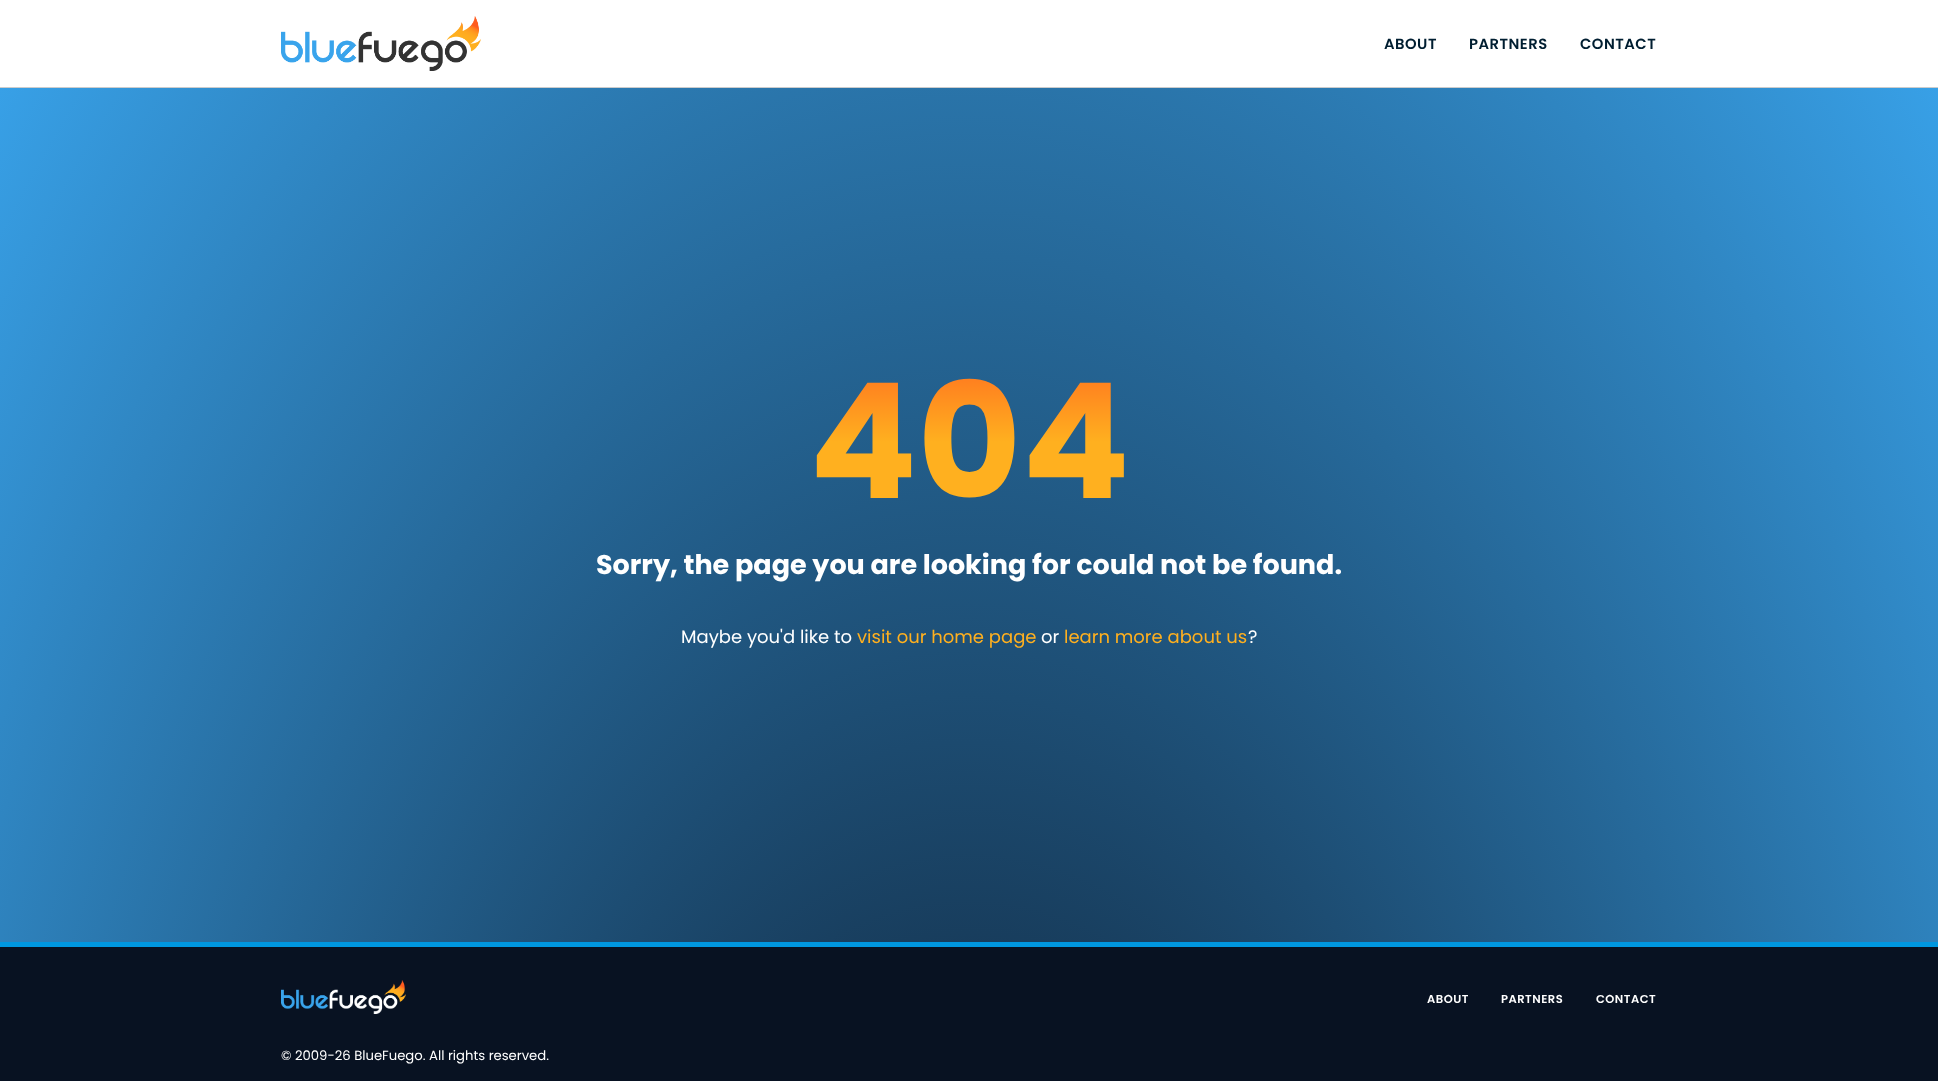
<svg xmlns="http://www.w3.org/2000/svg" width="1938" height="1081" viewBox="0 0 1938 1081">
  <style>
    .t1 { font: 600 14.75px Poppins; letter-spacing: 0.5px; fill: #001e31; }
    .t2 { font: bold 160px Poppins; fill: url(#g1); }
    .t3 { font: bold 27px Poppins; fill: #fff; }
    .t4 { font: 18px Poppins; fill: #fff; }
    .t5 { font: 18px Poppins; fill: #ffb01f; }
    .t6 { font: 600 11.5px Poppins; letter-spacing: 0.5px; fill: #fff; }
    .t7 { font: 13.2px Poppins; fill: #fff; }
  </style>
  <defs>
    <linearGradient id="g1" gradientUnits="userSpaceOnUse" x1="969" y1="330" x2="969" y2="554"><stop offset="0" stop-color="#ff5b1f"/><stop offset="0.5" stop-color="#ffb01f"/></linearGradient>
    <radialGradient id="g2" gradientUnits="userSpaceOnUse" cx="0" cy="0" r="1" gradientTransform="matrix(1370 0 0 2293 969 1622)"><stop offset="0" stop-color="#0a1221"/><stop offset="1" stop-color="#39a4ec"/></radialGradient>
  </defs>
  <rect width="100%" height="100%" fill="#fff"/>
  <rect x="0" y="87" width="1938" height="1" fill="#ccc"/>
  <image x="281" y="16" width="200" height="55" href="images/1.png"/>
  <text x="1384" y="49" class="t1">ABOUT</text>
  <text x="1469" y="49" class="t1">PARTNERS</text>
  <text x="1580" y="49" class="t1">CONTACT</text>
  <rect x="0" y="88" width="1938" height="854" fill="url(#g2)"/>
  <text x="809" y="498" class="t2">404</text>
  <text x="596" y="574" class="t3">Sorry, the page you are looking for could not be found.</text>
  <text x="681" y="643" class="t4">Maybe you'd like to</text>
  <text x="857" y="643" class="t5">visit our home page</text>
  <text x="1041" y="643" class="t4">or</text>
  <text x="1064" y="643" class="t5">learn more about us</text>
  <text x="1248" y="643" class="t4">?</text>
  <rect x="0" y="947" width="1938" height="134" fill="#081222"/>
  <rect x="0" y="942" width="1938" height="5" fill="#0097e0"/>
  <image x="281" y="980" width="125" height="34" href="images/2.png"/>
  <text x="1427" y="1003" class="t6">ABOUT</text>
  <text x="1501" y="1003" class="t6">PARTNERS</text>
  <text x="1596" y="1003" class="t6">CONTACT</text>
  <text x="281" y="1060" class="t7">© 2009-26 BlueFuego. All rights reserved.</text>
</svg>
